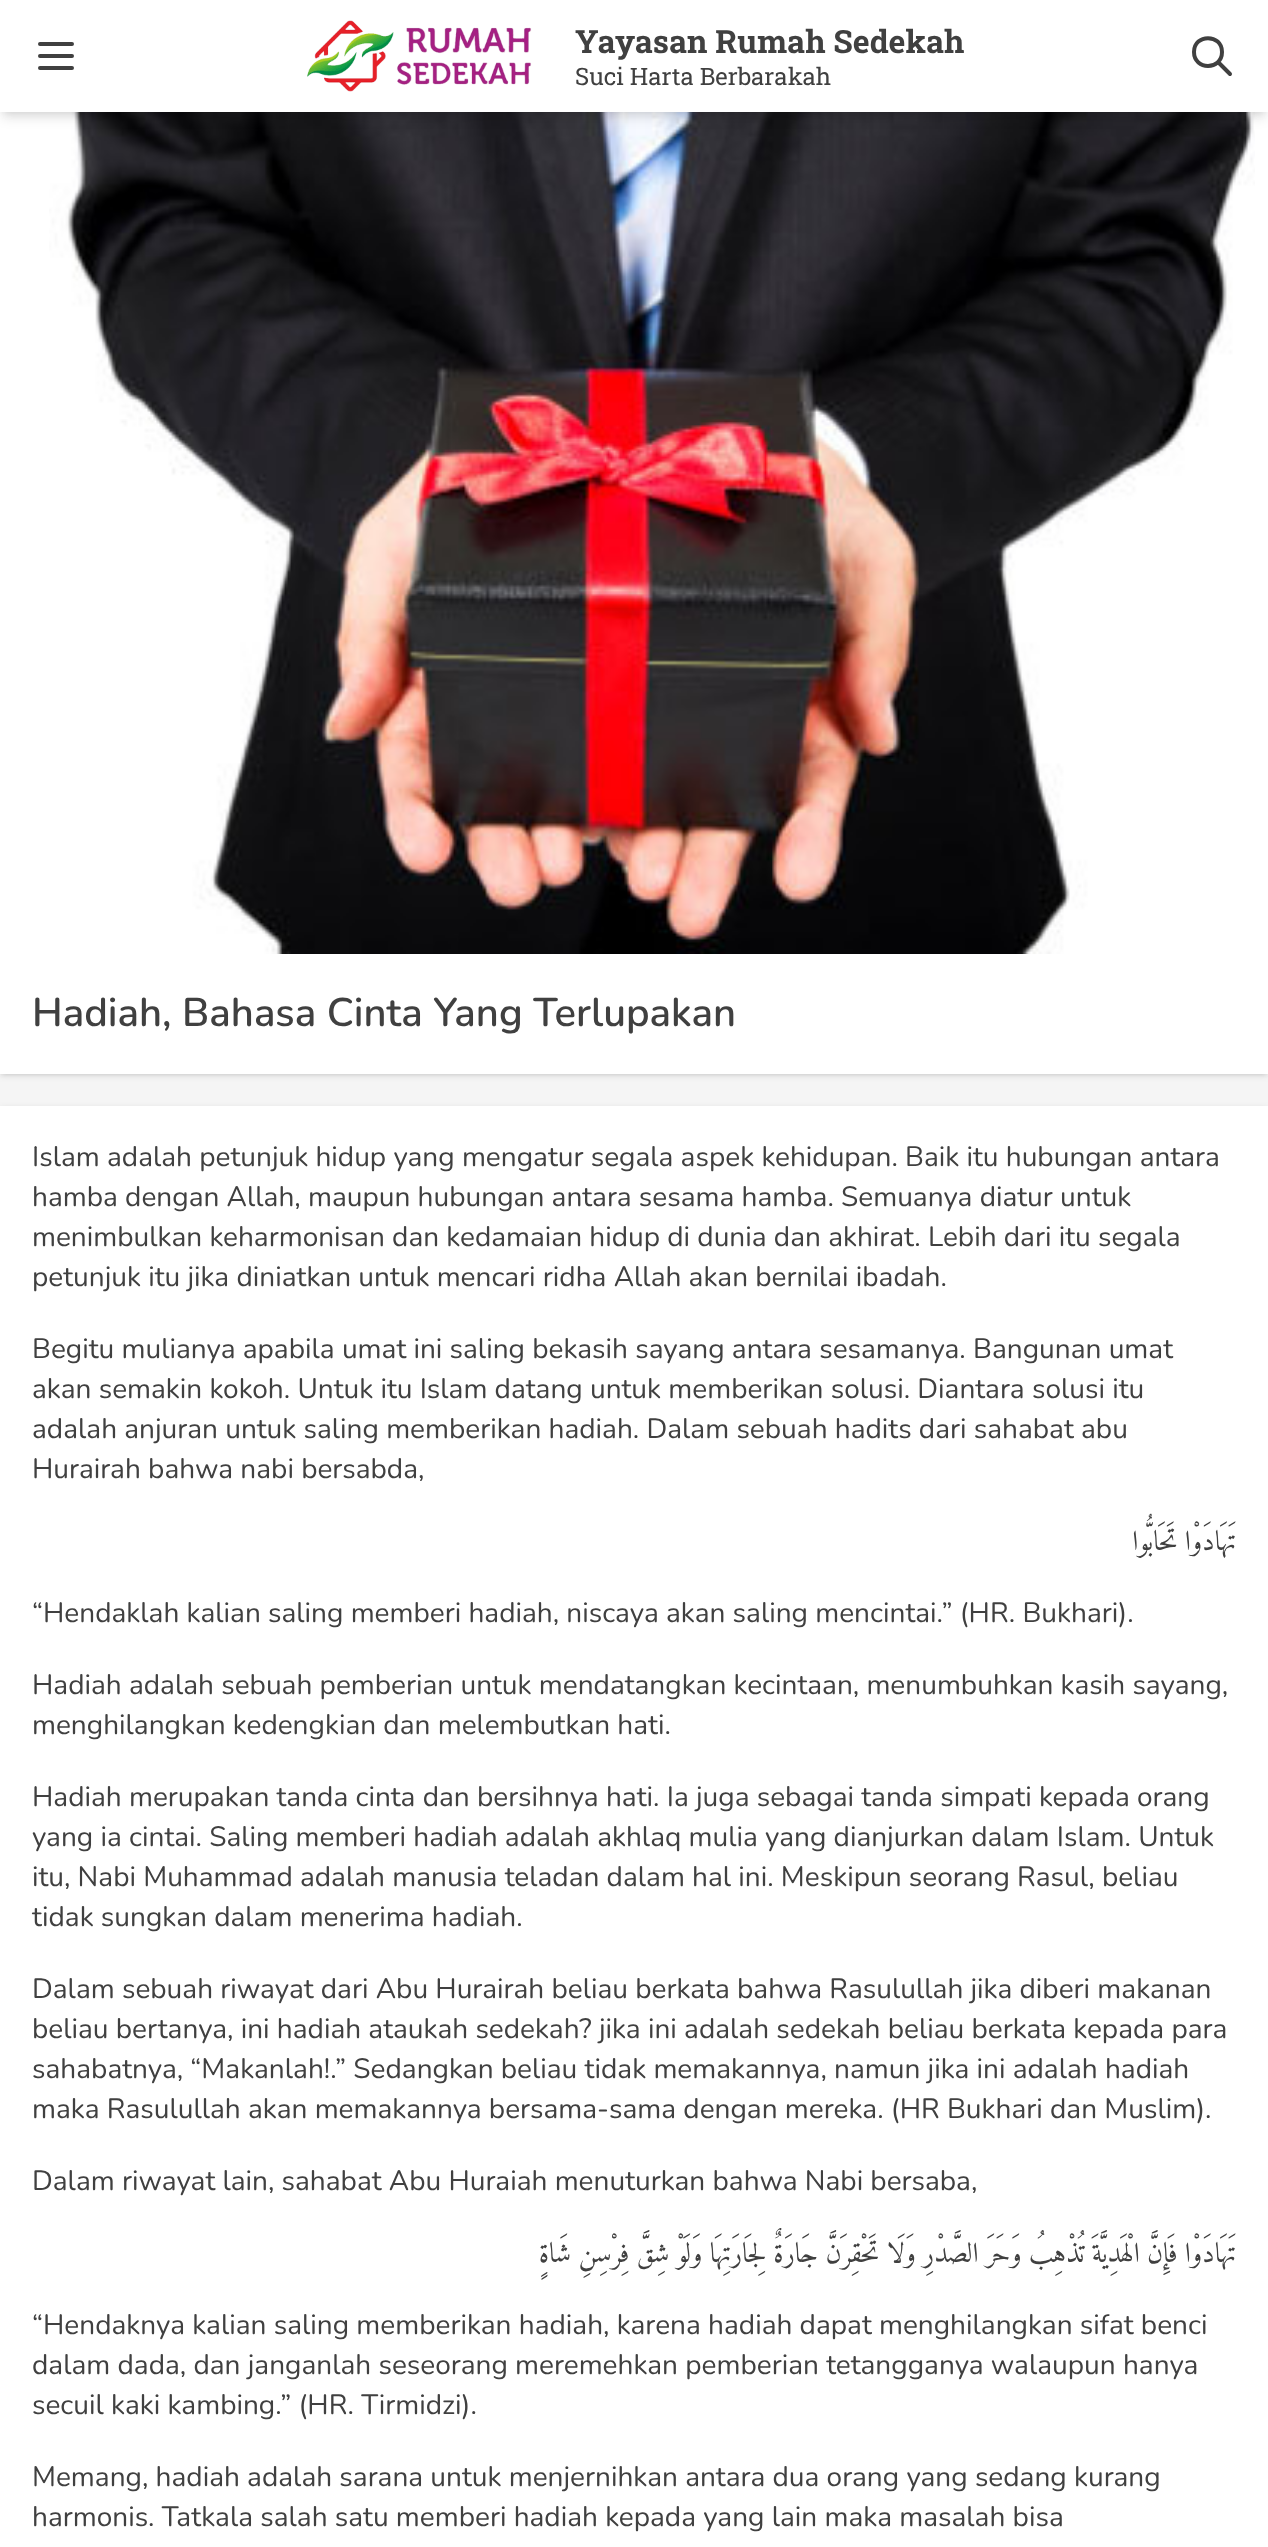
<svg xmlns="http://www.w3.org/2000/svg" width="1268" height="2547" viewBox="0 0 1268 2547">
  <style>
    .t1 { font: bold 32px Roboto Slab; fill: #404040; }
    .t2 { font: 24px Roboto Slab; fill: #404040; }
    .t3 { font: 600 40px Nunito; fill: #404040; }
    .t4 { font: 28px Nunito; fill: #404040; }
    .t5 { font: 28px Amiri; direction: rtl; fill: #404040; }
  </style>
  <defs>
    <clipPath id="clip1"><rect x="32" y="1138" width="1204" height="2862"/></clipPath>
  </defs>
  <rect width="100%" height="100%" fill="#f5f5f5"/>
  <rect x="2" y="116" width="1264" height="958" fill="#0000001a" filter="blur(2px)"/>
  <rect x="0" y="114" width="1268" height="962" fill="#0000001a" filter="blur(3px)"/>
  <rect x="0" y="112" width="1268" height="962" fill="#fff"/>
  <image x="49" y="112" width="1206" height="842" href="images/2.png"/>
  <rect x="4" y="8" width="1260" height="104" fill="#0000001a" filter="blur(4px)"/>
  <rect x="2" y="10" width="1264" height="108" fill="#0000001a" filter="blur(6px)"/>
  <rect x="0" y="0" width="1268" height="112" fill="#fff"/>
  <path d="M40 44H72M40 56H72M40 68H72" fill="none" stroke="#404040" stroke-width="4" stroke-linecap="round" stroke-linejoin="round"/>
  <image x="307" y="20" width="225" height="72" href="images/1.png"/>
  <text x="575" y="53" class="t1">Yayasan Rumah Sedekah</text>
  <text x="575" y="85" class="t2">Suci Harta Berbarakah</text>
  <path d="M1230 74L1218 62M1222 52C1222 70.5 1194 70.5 1194 52C1194 33.5 1222 33.5 1222 52Z" fill="none" stroke="#404040" stroke-width="4" stroke-linecap="round" stroke-linejoin="round"/>
  <text x="32" y="1026" class="t3">Hadiah, Bahasa Cinta Yang Terlupakan</text>
  <rect x="0" y="1108" width="1268" height="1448" fill="#0000001a" filter="blur(3px)"/>
  <rect x="0" y="1106" width="1268" height="1441" fill="#fff"/>
  <text x="32" y="1166" class="t4">Islam adalah petunjuk hidup yang mengatur segala aspek kehidupan. Baik itu hubungan antara</text>
  <text x="32" y="1206" class="t4">hamba dengan Allah, maupun hubungan antara sesama hamba. Semuanya diatur untuk</text>
  <text x="32" y="1246" class="t4">menimbulkan keharmonisan dan kedamaian hidup di dunia dan akhirat. Lebih dari itu segala</text>
  <text x="32" y="1286" class="t4">petunjuk itu jika diniatkan untuk mencari ridha Allah akan bernilai ibadah.</text>
  <text x="32" y="1358" class="t4">Begitu mulianya apabila umat ini saling bekasih sayang antara sesamanya. Bangunan umat</text>
  <text x="32" y="1398" class="t4">akan semakin kokoh. Untuk itu Islam datang untuk memberikan solusi. Diantara solusi itu</text>
  <text x="32" y="1438" class="t4">adalah anjuran untuk saling memberikan hadiah. Dalam sebuah hadits dari sahabat abu</text>
  <text x="32" y="1478" class="t4">Hurairah bahwa nabi bersabda,</text>
  <text x="1236" y="1550" word-spacing="-1" class="t5">تَهَادَوْا تَحَابُّوا</text>
  <text x="32" y="1622" class="t4">“Hendaklah kalian saling memberi hadiah, niscaya akan saling mencintai.” (HR. Bukhari).</text>
  <text x="32" y="1694" class="t4">Hadiah adalah sebuah pemberian untuk mendatangkan kecintaan, menumbuhkan kasih sayang,</text>
  <text x="32" y="1734" class="t4">menghilangkan kedengkian dan melembutkan hati.</text>
  <text x="32" y="1806" class="t4">Hadiah merupakan tanda cinta dan bersihnya hati. Ia juga sebagai tanda simpati kepada orang</text>
  <text x="32" y="1846" class="t4">yang ia cintai. Saling memberi hadiah adalah akhlaq mulia yang dianjurkan dalam Islam. Untuk</text>
  <text x="32" y="1886" class="t4">itu, Nabi Muhammad adalah manusia teladan dalam hal ini. Meskipun seorang Rasul, beliau</text>
  <text x="32" y="1926" class="t4">tidak sungkan dalam menerima hadiah.</text>
  <text x="32" y="1998" class="t4">Dalam sebuah riwayat dari Abu Hurairah beliau berkata bahwa Rasulullah jika diberi makanan</text>
  <text x="32" y="2038" class="t4">beliau bertanya, ini hadiah ataukah sedekah? jika ini adalah sedekah beliau berkata kepada para</text>
  <text x="32" y="2078" class="t4">sahabatnya, “Makanlah!.” Sedangkan beliau tidak memakannya, namun jika ini adalah hadiah</text>
  <text x="32" y="2118" class="t4">maka Rasulullah akan memakannya bersama-sama dengan mereka. (HR Bukhari dan Muslim).</text>
  <text x="32" y="2190" class="t4">Dalam riwayat lain, sahabat Abu Huraiah menuturkan bahwa Nabi bersaba,</text>
  <g clip-path="url(#clip1)">
    <text x="1236" y="2262" word-spacing="-1" class="t5">تَهَادَوْا فَإِنَّ الْهَدِيَّةَ تُذْهِبُ وَحَرَ الصَّدْرِ وَلَا تَحْقِرَنَّ جَارَةٌ لِجَارَتِهَا وَلَوْ شِقَّ فِرْسِنِ شَاةٍ</text>
  </g>
  <text x="32" y="2334" class="t4">“Hendaknya kalian saling memberikan hadiah, karena hadiah dapat menghilangkan sifat benci</text>
  <text x="32" y="2374" class="t4">dalam dada, dan janganlah seseorang meremehkan pemberian tetangganya walaupun hanya</text>
  <text x="32" y="2414" class="t4">secuil kaki kambing.” (HR. Tirmidzi).</text>
  <text x="32" y="2486" class="t4">Memang, hadiah adalah sarana untuk menjernihkan antara dua orang yang sedang kurang</text>
  <text x="32" y="2526" class="t4">harmonis. Tatkala salah satu memberi hadiah kepada yang lain maka masalah bisa</text>
</svg>
